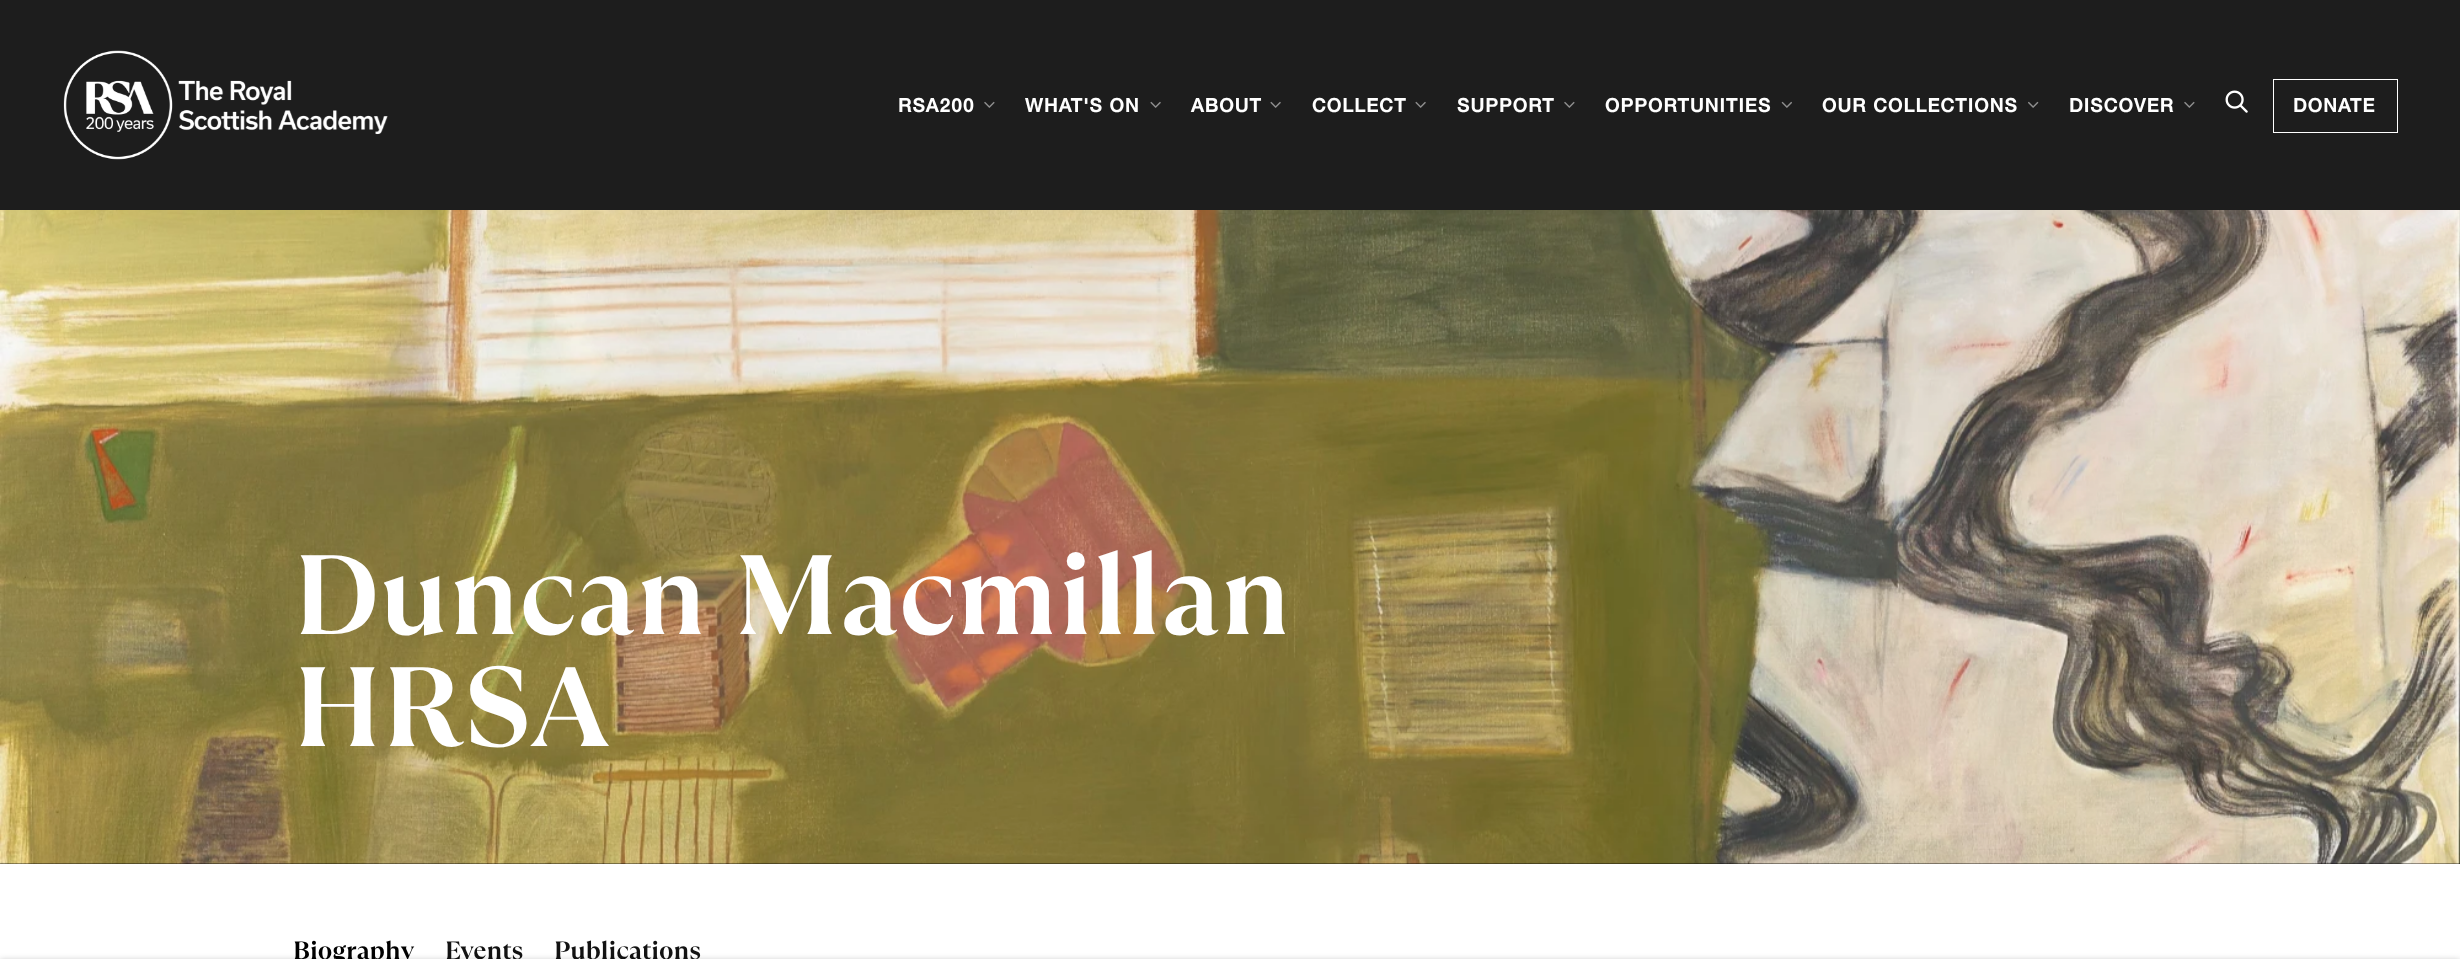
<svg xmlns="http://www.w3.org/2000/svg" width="2460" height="959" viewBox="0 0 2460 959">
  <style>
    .t1 { font: bold 18.75px Helvetica Neue; letter-spacing: 1.25px; fill: #fff; }
    .t2 { font: bold 112.5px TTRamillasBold; fill: #fff; }
    .t3 { font: bold 25px TTRamillasBold; fill: #000; }
    .t4 { font: bold 25px TTRamillasBold; fill: #121212; }
  </style>
  <rect width="100%" height="100%" fill="#fff"/>
  <rect x="0" y="0" width="2460" height="210" fill="#1d1d1d"/>
  <image x="63" y="50" width="325" height="110" href="images/1.png"/>
  <text x="898" y="112" class="t1">RSA200</text>
  <image x="984" y="101" width="11" height="7" href="images/2.png"/>
  <text x="1025" y="112" class="t1">WHAT'S ON</text>
  <image x="1150" y="101" width="11" height="7" href="images/3.png"/>
  <text x="1191" y="112" class="t1">ABOUT</text>
  <image x="1270" y="101" width="11" height="7" href="images/3.png"/>
  <text x="1312" y="112" class="t1">COLLECT</text>
  <image x="1415" y="101" width="11" height="7" href="images/3.png"/>
  <text x="1457" y="112" class="t1">SUPPORT</text>
  <image x="1564" y="101" width="11" height="7" href="images/2.png"/>
  <text x="1605" y="112" class="t1">OPPORTUNITIES</text>
  <image x="1781" y="101" width="11" height="7" href="images/4.png"/>
  <text x="1822" y="112" class="t1">OUR COLLECTIONS</text>
  <image x="2028" y="101" width="11" height="7" href="images/5.png"/>
  <text x="2069" y="112" class="t1">DISCOVER</text>
  <image x="2184" y="101" width="11" height="7" href="images/2.png"/>
  <image x="2225" y="90" width="23" height="23" href="images/6.png"/>
  <rect x="2273.5" y="79.5" width="124" height="53" fill="none" stroke="#fff"/>
  <text x="2293" y="112" class="t1">DONATE</text>
  <rect x="0" y="210" width="2460" height="654" fill="#000"/>
  <image x="0" y="210" width="2460" height="654" href="images/7.png"/>
  <text x="293" y="634" class="t2">Duncan Macmillan</text>
  <text x="293" y="746" class="t2">HRSA</text>
  <text x="293" y="959" class="t3">Biography</text>
  <text x="445" y="959" class="t4">Events</text>
  <text x="554" y="959" class="t4">Publications</text>
  <rect x="0" y="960" width="2460" height="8" fill="#0000003b" filter="blur(3px)"/>
</svg>
